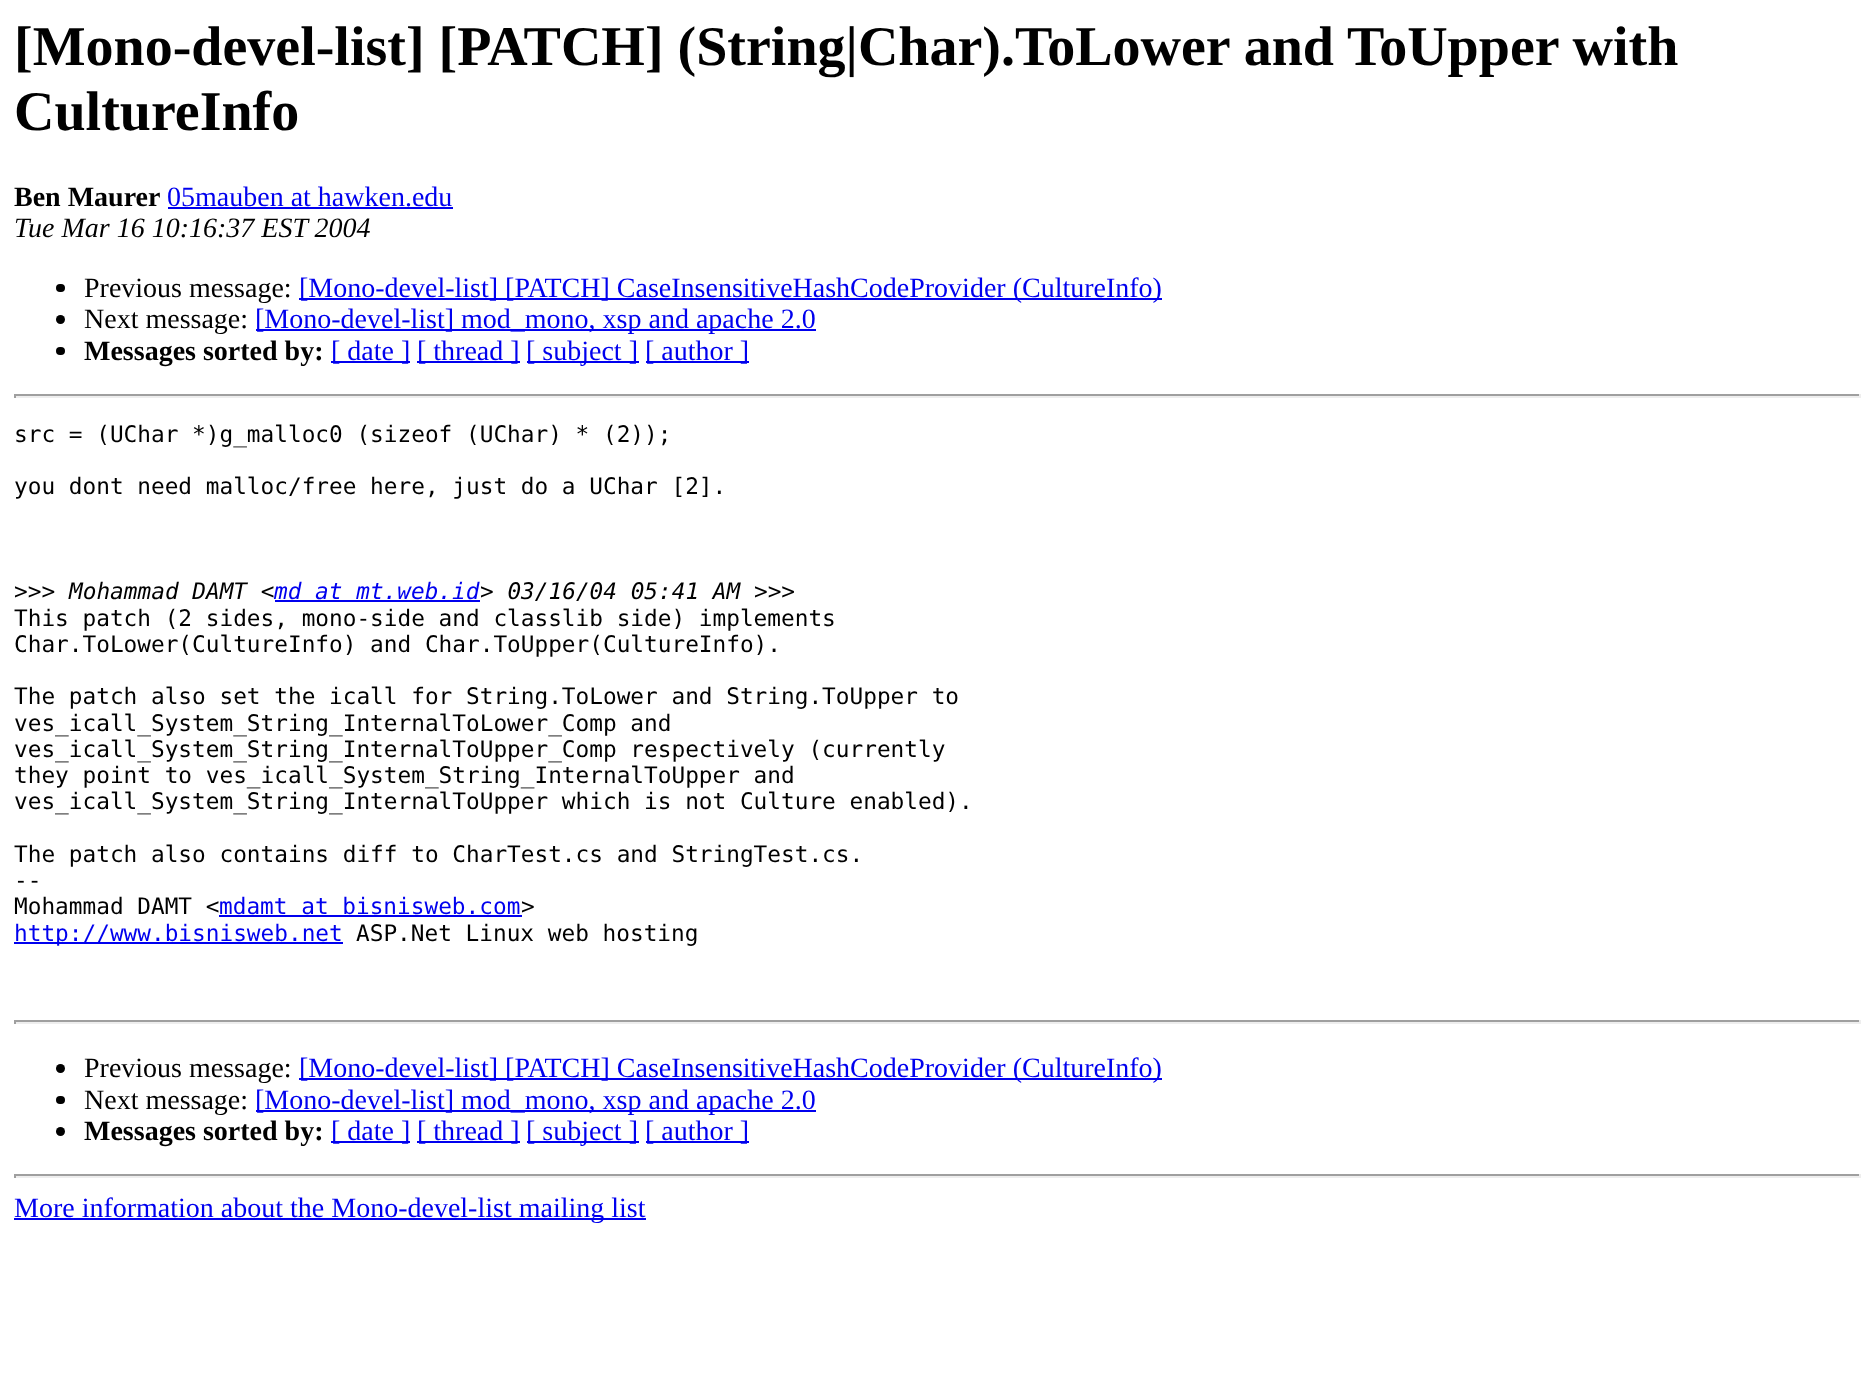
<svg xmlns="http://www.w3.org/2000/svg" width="1873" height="1391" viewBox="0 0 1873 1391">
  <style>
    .t1 { font: bold 56px Liberation Serif; fill: #000; }
    .t2 { font: bold 28px Liberation Serif; fill: #000; }
    .t3 { font: 28px Liberation Serif; fill: #00e; }
    .t4 { font: italic 28px Liberation Serif; fill: #000; }
    .t5 { font: 28px Liberation Serif; fill: #000; }
    .t6 { font: 22.75px DejaVu Sans Mono; fill: #000; }
    .t7 { font: italic 22.75px DejaVu Sans Mono; fill: #000; }
    .t8 { font: italic 22.75px DejaVu Sans Mono; fill: #00e; }
    .t9 { font: 22.75px DejaVu Sans Mono; fill: #00e; }
  </style>
  <rect width="100%" height="100%" fill="#fff"/>
  <text x="14" y="65" class="t1">[Mono-devel-list] [PATCH] (String|Char).ToLower and ToUpper with</text>
  <text x="14" y="130" class="t1">CultureInfo</text>
  <text x="14" y="206" class="t2">Ben Maurer</text>
  <text x="167" y="206" class="t3">05mauben at hawken.edu</text>
  <rect x="168" y="207" width="285" height="2" fill="#00e"/>
  <text x="14" y="237" class="t4">Tue Mar 16 10:16:37 EST 2004</text>
  <rect x="56" y="284" width="9" height="8" rx="4" fill="#000"/>
  <text x="84" y="297" class="t5">Previous message:</text>
  <rect x="299" y="298" width="863" height="2" fill="#00e"/>
  <text x="299" y="297" class="t3">[Mono-devel-list] [PATCH] CaseInsensitiveHashCodeProvider (CultureInfo)</text>
  <circle cx="60.5" cy="319.5" r="4.5" fill="#000"/>
  <text x="84" y="328" class="t5">Next message:</text>
  <rect x="256" y="329" width="560" height="2" fill="#00e"/>
  <text x="255" y="328" class="t3">[Mono-devel-list] mod_mono, xsp and apache 2.0</text>
  <rect x="56" y="347" width="9" height="8" rx="4" fill="#000"/>
  <text x="84" y="360" class="t2">Messages sorted by:</text>
  <rect x="331" y="361" width="79" height="2" fill="#00e"/>
  <text x="331" y="360" class="t3">[ date ]</text>
  <rect x="417" y="361" width="103" height="2" fill="#00e"/>
  <text x="417" y="360" class="t3">[ thread ]</text>
  <rect x="527" y="361" width="112" height="2" fill="#00e"/>
  <text x="526" y="360" class="t3">[ subject ]</text>
  <rect x="646" y="361" width="103" height="2" fill="#00e"/>
  <text x="645" y="360" class="t3">[ author ]</text>
  <rect x="14" y="394" width="1846" height="2" fill="#9f9f9f"/>
  <rect x="1859" y="394" width="2" height="4" fill="#eee"/>
  <rect x="14" y="396" width="1846" height="2" fill="#eee"/>
  <rect x="14" y="394" width="2" height="4" fill="#9f9f9f"/>
  <text x="14" y="442" class="t6">src = (UChar *)g_malloc0 (sizeof (UChar) * (2));</text>
  <text x="14" y="494" class="t6">you dont need malloc/free here, just do a UChar [2].</text>
  <text x="14" y="599" class="t6">&gt;&gt;&gt;</text>
  <text x="69" y="599" class="t7">Mohammad DAMT &lt;</text>
  <text x="274" y="599" class="t8">md at mt.web.id</text>
  <text x="480" y="599" class="t7">&gt; 03/16/04 05:41 AM &gt;&gt;&gt;</text>
  <rect x="275" y="600" width="205" height="2" fill="#00e"/>
  <text x="14" y="626" class="t6">This patch (2 sides, mono-side and classlib side) implements</text>
  <text x="14" y="652" class="t6">Char.ToLower(CultureInfo) and Char.ToUpper(CultureInfo).</text>
  <text x="14" y="704" class="t6">The patch also set the icall for String.ToLower and String.ToUpper to</text>
  <text x="14" y="731" class="t6">ves_icall_System_String_InternalToLower_Comp and</text>
  <text x="14" y="757" class="t6">ves_icall_System_String_InternalToUpper_Comp respectively (currently</text>
  <text x="14" y="783" class="t6">they point to ves_icall_System_String_InternalToUpper and</text>
  <text x="14" y="809" class="t6">ves_icall_System_String_InternalToUpper which is not Culture enabled).</text>
  <text x="14" y="862" class="t6">The patch also contains diff to CharTest.cs and StringTest.cs.</text>
  <text x="14" y="888" class="t6">--</text>
  <text x="14" y="914" class="t6">Mohammad DAMT &lt;</text>
  <text x="219" y="914" class="t9">mdamt at bisnisweb.com</text>
  <rect x="219" y="915" width="303" height="2" fill="#00e"/>
  <text x="521" y="914" class="t6">&gt;</text>
  <rect x="14" y="942" width="329" height="2" fill="#00e"/>
  <text x="14" y="941" class="t9">http://www.bisnisweb.net</text>
  <text x="356" y="941" class="t6">ASP.Net Linux web hosting</text>
  <rect x="14" y="1020" width="1846" height="2" fill="#9f9f9f"/>
  <rect x="1859" y="1020" width="2" height="4" fill="#eee"/>
  <rect x="14" y="1022" width="1846" height="2" fill="#eee"/>
  <rect x="14" y="1020" width="2" height="4" fill="#9f9f9f"/>
  <circle cx="60.5" cy="1068.5" r="4.5" fill="#000"/>
  <text x="84" y="1077" class="t5">Previous message:</text>
  <rect x="299" y="1078" width="863" height="2" fill="#00e"/>
  <text x="299" y="1077" class="t3">[Mono-devel-list] [PATCH] CaseInsensitiveHashCodeProvider (CultureInfo)</text>
  <rect x="56" y="1096" width="9" height="8" rx="4" fill="#000"/>
  <text x="84" y="1109" class="t5">Next message:</text>
  <rect x="256" y="1110" width="560" height="2" fill="#00e"/>
  <text x="255" y="1109" class="t3">[Mono-devel-list] mod_mono, xsp and apache 2.0</text>
  <circle cx="60.5" cy="1131.5" r="4.5" fill="#000"/>
  <text x="84" y="1140" class="t2">Messages sorted by:</text>
  <rect x="331" y="1141" width="79" height="2" fill="#00e"/>
  <text x="331" y="1140" class="t3">[ date ]</text>
  <rect x="417" y="1141" width="103" height="2" fill="#00e"/>
  <text x="417" y="1140" class="t3">[ thread ]</text>
  <rect x="527" y="1141" width="112" height="2" fill="#00e"/>
  <text x="526" y="1140" class="t3">[ subject ]</text>
  <rect x="646" y="1141" width="103" height="2" fill="#00e"/>
  <text x="645" y="1140" class="t3">[ author ]</text>
  <rect x="14" y="1174" width="1846" height="2" fill="#9f9f9f"/>
  <rect x="1859" y="1174" width="2" height="4" fill="#eee"/>
  <rect x="14" y="1176" width="1846" height="2" fill="#eee"/>
  <rect x="14" y="1174" width="2" height="4" fill="#9f9f9f"/>
  <rect x="14" y="1218" width="632" height="2" fill="#00e"/>
  <text x="14" y="1217" class="t3">More information about the Mono-devel-list mailing list</text>
</svg>
